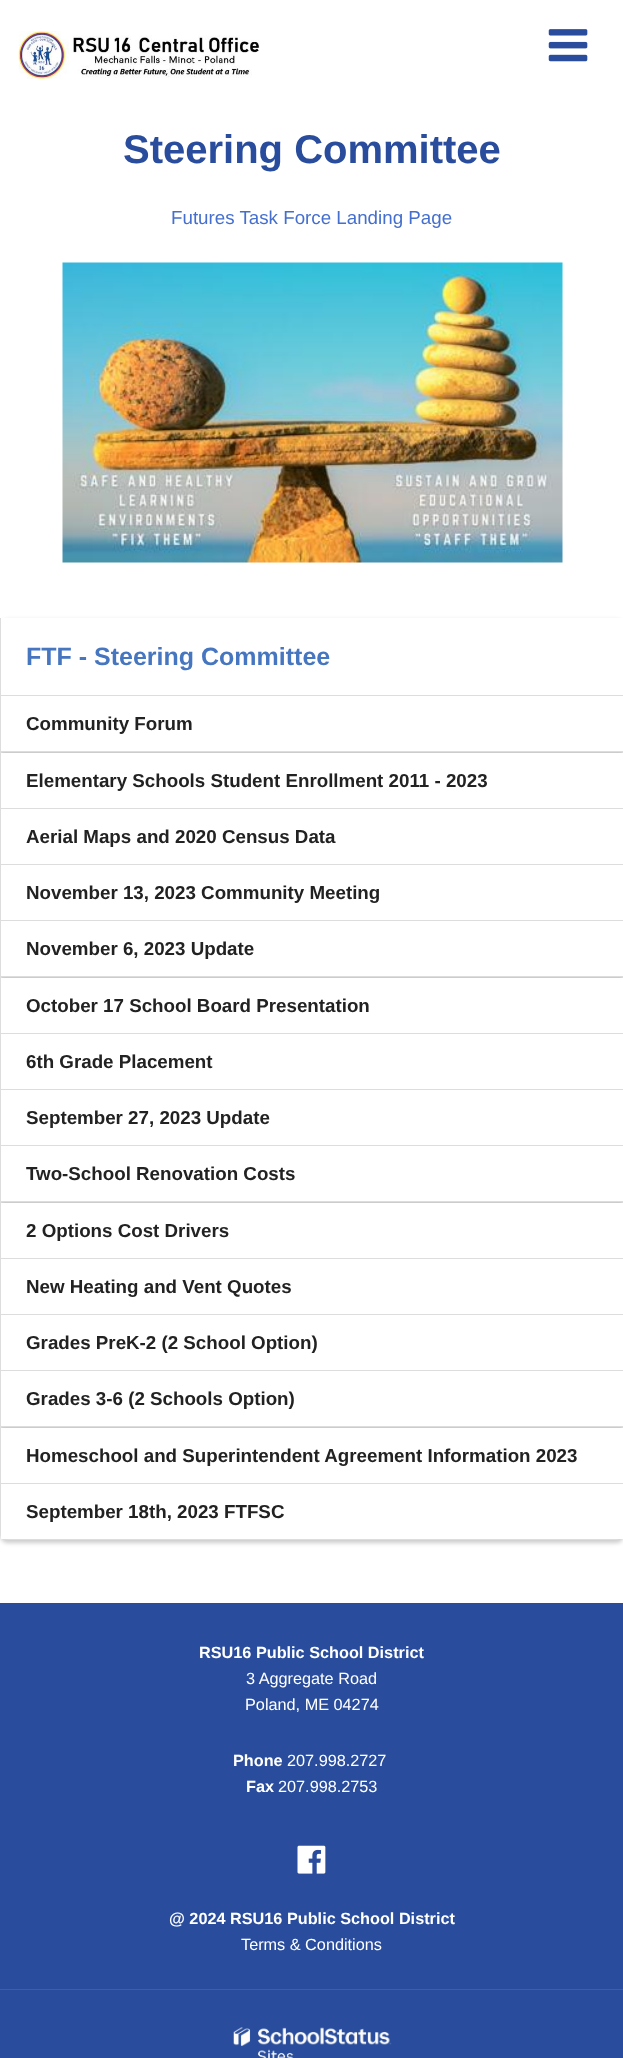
<svg xmlns="http://www.w3.org/2000/svg" width="623" height="2058" viewBox="0 0 623 2058">
  <style>
    .t1 { font: bold 40px Liberation Sans; fill: #294d9c; }
    .t2 { font: 18.75px Liberation Sans; fill: #446fce; }
    .t3 { font: bold 25px Liberation Sans; fill: #4676c0; }
    .t4 { font: bold 18.75px Liberation Sans; fill: #222; }
    .t5 { font: bold 16.25px Liberation Sans; fill: #fff; }
    .t6 { font: 16.25px Liberation Sans; fill: #fff; }
  </style>
  <rect width="100%" height="100%" fill="#294d9c"/>
  <rect x="0" y="0" width="623" height="1603" fill="#fff"/>
  <image x="18" y="31" width="242" height="48" href="images/1.png"/>
  <image x="548" y="29" width="40" height="33" href="images/2.png"/>
  <text x="123" y="163" class="t1">Steering Committee</text>
  <text x="171" y="224" class="t2">Futures Task Force Landing Page</text>
  <image x="62" y="262" width="501" height="301" href="images/3.png"/>
  <rect x="0" y="620" width="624" height="923" rx="8" fill="#00000033" filter="blur(2px)"/>
  <path d="M0 618H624V1532C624 1537 620 1540 616 1540H8C3 1540 0 1537 0 1532ZM1 618H622V1532C622 1536 620 1539 616 1539H8C4 1539 1 1536 1 1532Z" fill="#ddd" fill-rule="evenodd"/>
  <rect x="1" y="695" width="622" height="1" fill="#ddd"/>
  <rect x="1" y="618" width="622" height="77" fill="#fff"/>
  <text x="26" y="665" class="t3">FTF - Steering Committee</text>
  <rect x="1" y="751" width="622" height="1" fill="#ddd"/>
  <rect x="1" y="696" width="622" height="55" fill="#fff"/>
  <text x="26" y="730" class="t4">Community Forum</text>
  <rect x="1" y="808" width="622" height="1" fill="#ddd"/>
  <rect x="1" y="753" width="622" height="55" fill="#fff"/>
  <text x="26" y="787" class="t4">Elementary Schools Student Enrollment 2011 - 2023</text>
  <rect x="1" y="864" width="622" height="1" fill="#ddd"/>
  <rect x="1" y="809" width="622" height="55" fill="#fff"/>
  <text x="26" y="843" class="t4">Aerial Maps and 2020 Census Data</text>
  <rect x="1" y="920" width="622" height="1" fill="#ddd"/>
  <rect x="1" y="865" width="622" height="55" fill="#fff"/>
  <text x="26" y="899" class="t4">November 13, 2023 Community Meeting</text>
  <rect x="1" y="976" width="622" height="1" fill="#ddd"/>
  <rect x="1" y="921" width="622" height="55" fill="#fff"/>
  <text x="26" y="955" class="t4">November 6, 2023 Update</text>
  <rect x="1" y="1033" width="622" height="1" fill="#ddd"/>
  <rect x="1" y="978" width="622" height="55" fill="#fff"/>
  <text x="26" y="1012" class="t4">October 17 School Board Presentation</text>
  <rect x="1" y="1089" width="622" height="1" fill="#ddd"/>
  <rect x="1" y="1034" width="622" height="55" fill="#fff"/>
  <text x="26" y="1068" class="t4">6th Grade Placement</text>
  <rect x="1" y="1145" width="622" height="1" fill="#ddd"/>
  <rect x="1" y="1090" width="622" height="55" fill="#fff"/>
  <text x="26" y="1124" class="t4">September 27, 2023 Update</text>
  <rect x="1" y="1201" width="622" height="1" fill="#ddd"/>
  <rect x="1" y="1146" width="622" height="55" fill="#fff"/>
  <text x="26" y="1180" class="t4">Two-School Renovation Costs</text>
  <rect x="1" y="1258" width="622" height="1" fill="#ddd"/>
  <rect x="1" y="1203" width="622" height="55" fill="#fff"/>
  <text x="26" y="1237" class="t4">2 Options Cost Drivers</text>
  <rect x="1" y="1314" width="622" height="1" fill="#ddd"/>
  <rect x="1" y="1259" width="622" height="55" fill="#fff"/>
  <text x="26" y="1293" class="t4">New Heating and Vent Quotes</text>
  <rect x="1" y="1370" width="622" height="1" fill="#ddd"/>
  <rect x="1" y="1315" width="622" height="55" fill="#fff"/>
  <text x="26" y="1349" class="t4">Grades PreK-2 (2 School Option)</text>
  <rect x="1" y="1426" width="622" height="1" fill="#ddd"/>
  <rect x="1" y="1371" width="622" height="55" fill="#fff"/>
  <text x="26" y="1405" class="t4">Grades 3-6 (2 Schools Option)</text>
  <rect x="1" y="1483" width="622" height="1" fill="#ddd"/>
  <rect x="1" y="1428" width="622" height="55" fill="#fff"/>
  <text x="26" y="1462" class="t4">Homeschool and Superintendent Agreement Information 2023</text>
  <rect x="1" y="1484" width="622" height="55" fill="#fff"/>
  <text x="26" y="1518" class="t4">September 18th, 2023 FTFSC</text>
  <text x="199" y="1658" class="t5">RSU16 Public School District</text>
  <text x="246" y="1684" class="t6">3 Aggregate Road</text>
  <text x="245" y="1710" class="t6">Poland, ME 04274</text>
  <text x="233" y="1766" class="t5">Phone</text>
  <text x="287" y="1766" class="t6">207.998.2727</text>
  <text x="246" y="1792" class="t5">Fax</text>
  <text x="278" y="1792" class="t6">207.998.2753</text>
  <image x="297" y="1845" width="29" height="29" href="images/4.png"/>
  <text x="169" y="1924" class="t5">@ 2024 RSU16 Public School District</text>
  <text x="241" y="1950" class="t6">Terms &amp; Conditions</text>
  <rect x="0" y="1989" width="623" height="1" fill="#3e5fa6"/>
  <image x="233" y="2027" width="159" height="31" href="images/5.png"/>
</svg>
